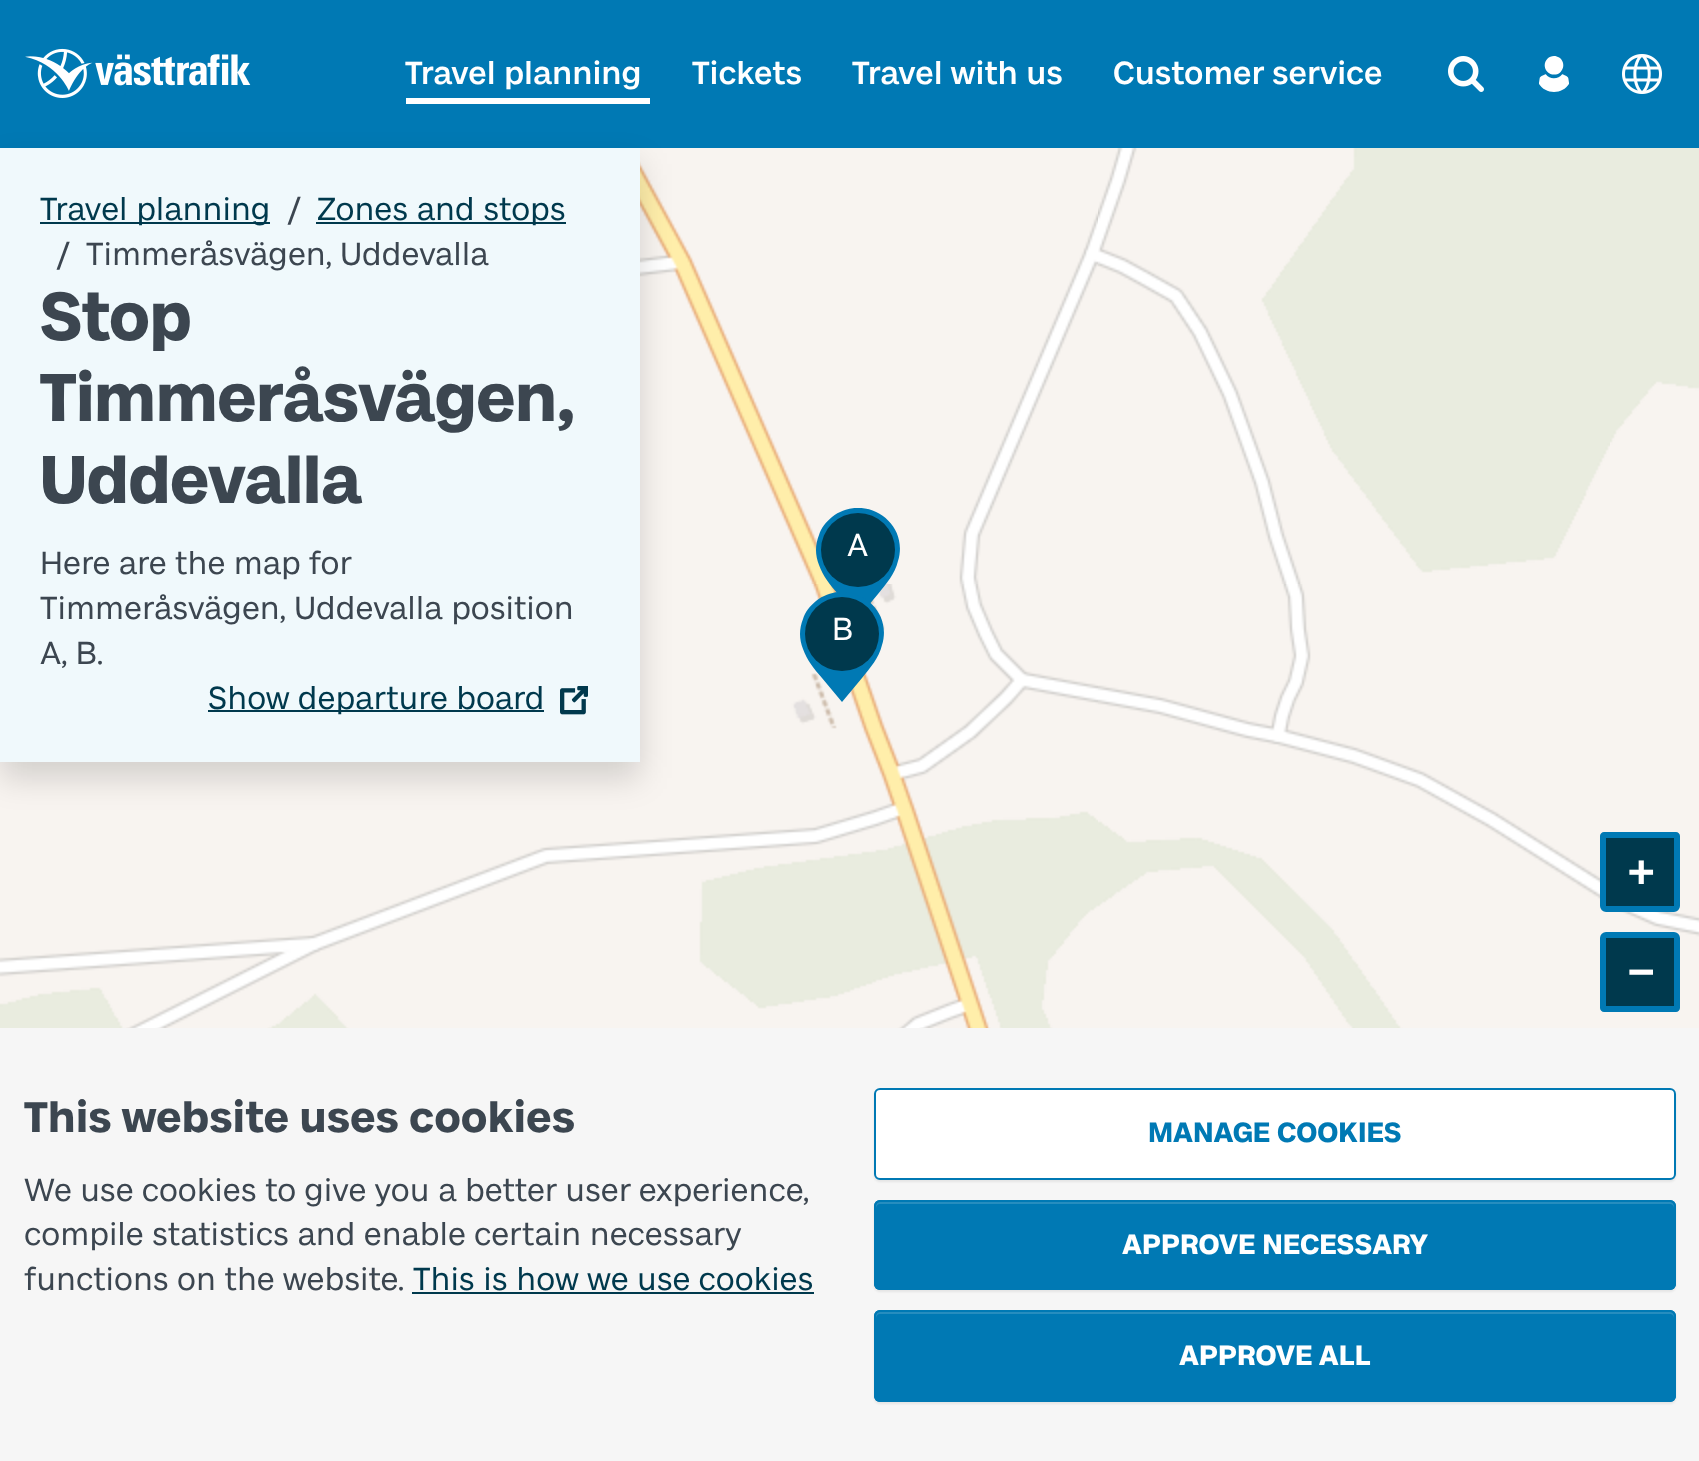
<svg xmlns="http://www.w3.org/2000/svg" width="1699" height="1461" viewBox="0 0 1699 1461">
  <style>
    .t1 { font: 500 32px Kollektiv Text; fill: #fff; }
    .t2 { font: 32px Kollektiv Text; fill: #00394d; }
    .t3 { font: 32px Kollektiv Text; fill: #3c4650; }
    .t4 { font: bold 68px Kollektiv; fill: #3c4650; }
    .t5 { font: 32px Kollektiv Text; fill: #fff; }
    .t6 { font: bold 44px DejaVu Sans Mono; fill: #fff; }
    .t7 { font: bold 43px Kollektiv Text; fill: #3c4650; }
    .t8 { font: bold 28px Kollektiv Text; fill: #0079b4; }
    .t9 { font: bold 28px Kollektiv Text; fill: #fff; }
  </style>
  <defs>
    <clipPath id="clip1"><rect x="816" y="508" width="84" height="110"/></clipPath>
    <clipPath id="clip2"><rect x="800" y="592" width="84" height="110"/></clipPath>
  </defs>
  <rect width="100%" height="100%" fill="#0079b4"/>
  <image x="25" y="48" width="226" height="50" href="images/1.png"/>
  <text x="405" y="84" class="t1">Travel planning</text>
  <rect x="406" y="98" width="244" height="6" fill="#fff"/>
  <text x="692" y="84" class="t1">Tickets</text>
  <text x="852" y="84" class="t1">Travel with us</text>
  <text x="1113" y="84" class="t1">Customer service</text>
  <image x="1448" y="56" width="36" height="36" href="images/2.png"/>
  <image x="1539" y="56" width="30" height="36" href="images/3.png"/>
  <image x="1622" y="54" width="40" height="40" href="images/4.png"/>
  <image x="640" y="148" width="458" height="436" href="images/6.png"/>
  <image x="0" y="762" width="74" height="266" href="images/9.png"/>
  <image x="74" y="762" width="512" height="266" href="images/10.png"/>
  <image x="586" y="584" width="512" height="444" href="images/11.png"/>
  <rect x="0" y="164" width="640" height="614" fill="#00000026" filter="blur(16px)"/>
  <rect x="0" y="148" width="640" height="614" fill="#f0f9fc"/>
  <rect x="40" y="222" width="230" height="2" fill="#00394d"/>
  <text x="40" y="220" class="t2">Travel planning</text>
  <text x="287" y="220" class="t3">/</text>
  <rect x="316" y="222" width="250" height="2" fill="#00394d"/>
  <text x="317" y="220" class="t2">Zones and stops</text>
  <text x="56" y="265" class="t3">/</text>
  <text x="86" y="265" class="t3">Timmeråsvägen, Uddevalla</text>
  <text x="40" y="340" class="t4">Stop</text>
  <text x="40" y="421" class="t4">Timmeråsvägen,</text>
  <text x="40" y="503" class="t4">Uddevalla</text>
  <text x="40" y="574" class="t3">Here are the map for</text>
  <text x="40" y="619" class="t3">Timmeråsvägen, Uddevalla position</text>
  <text x="40" y="664" class="t3">A, B.</text>
  <image x="560" y="686" width="28" height="29" href="images/5.png"/>
  <rect x="208" y="710" width="336" height="2" fill="#00394d"/>
  <text x="208" y="709" class="t2">Show departure board</text>
  <image x="1098" y="148" width="512" height="436" href="images/7.png"/>
  <image x="1610" y="148" width="89" height="436" href="images/8.png"/>
  <image x="1098" y="584" width="512" height="444" href="images/12.png"/>
  <image x="1610" y="584" width="89" height="444" href="images/13.png"/>
  <g clip-path="url(#clip1)">
    <path d="M858 618L838 594C830 585 823 576 819 565C815 555 815 545 819 535C821 528 826 522 832 517C864 492 910 522 898 561C895 574 886 584 878 594Z" fill="#0079b4"/>
  </g>
  <circle cx="858" cy="550" r="37" fill="#00394d"/>
  <text x="847" y="556" class="t5">A</text>
  <g clip-path="url(#clip2)">
    <path d="M842 702L822 678C814 669 807 660 803 649C799 639 799 629 803 619C805 612 810 606 816 601C848 576 894 606 882 645C879 658 870 668 862 678Z" fill="#0079b4"/>
  </g>
  <circle cx="842" cy="634" r="37" fill="#00394d"/>
  <text x="832" y="640" class="t5">B</text>
  <path d="M1604 835H1676C1676.5 835 1677 835.5 1677 836V906C1677 907.5 1675.5 909 1674 909H1606C1604.5 909 1603 907.5 1603 906V836C1603 835.5 1603.5 835 1604 835Z" fill="#00394d" stroke="#0079b4" stroke-width="6"/>
  <text x="1628" y="886" class="t6">+</text>
  <path d="M1606 935H1674C1675.5 935 1677 936.5 1677 938V1008C1677 1008.5 1676.5 1009 1676 1009H1604C1603.5 1009 1603 1008.5 1603 1008V938C1603 936.5 1604.5 935 1606 935Z" fill="#00394d" stroke="#0079b4" stroke-width="6"/>
  <text x="1628" y="986" class="t6">−</text>
  <rect x="0" y="1028" width="1699" height="433" fill="#f6f6f6"/>
  <text x="24" y="1132" class="t7">This website uses cookies</text>
  <text x="24" y="1201" class="t3">We use cookies to give you a better user experience,</text>
  <text x="24" y="1245" class="t3">compile statistics and enable certain necessary</text>
  <text x="24" y="1290" class="t3">functions on the website.</text>
  <text x="413" y="1290" class="t2">This is how we use cookies</text>
  <rect x="412" y="1292" width="402" height="2" fill="#00394d"/>
  <rect x="874" y="1090" width="802" height="92" rx="6" fill="#00000012" filter="blur(1px)"/>
  <rect x="875" y="1089" width="800" height="90" rx="5" fill="#fff" stroke="#0079b4" stroke-width="2"/>
  <text x="1148" y="1142" class="t8">MANAGE COOKIES</text>
  <rect x="874" y="1202" width="802" height="90" rx="6" fill="#00000012" filter="blur(1px)"/>
  <rect x="874" y="1200" width="802" height="90" rx="6" fill="#0079b4"/>
  <path d="M880 1204H1670C1672 1204 1674 1206 1674 1208V1206C1674 1204 1672 1202 1670 1202H880C878 1202 876 1204 876 1206V1208C876 1206 878 1204 880 1204Z" fill="#268dbf"/>
  <rect x="875" y="1201" width="800" height="88" rx="5" fill="none" stroke="#0079b4" stroke-width="2"/>
  <text x="1122" y="1254" class="t9">APPROVE NECESSARY</text>
  <rect x="874" y="1312" width="802" height="92" rx="6" fill="#00000012" filter="blur(1px)"/>
  <rect x="874" y="1310" width="802" height="92" rx="6" fill="#0079b4"/>
  <path d="M880 1314H1670C1672 1314 1674 1316 1674 1318V1316C1674 1314 1672 1312 1670 1312H880C878 1312 876 1314 876 1316V1318C876 1316 878 1314 880 1314Z" fill="#268dbf"/>
  <rect x="875" y="1311" width="800" height="90" rx="5" fill="none" stroke="#0079b4" stroke-width="2"/>
  <text x="1179" y="1365" class="t9">APPROVE ALL</text>
</svg>
